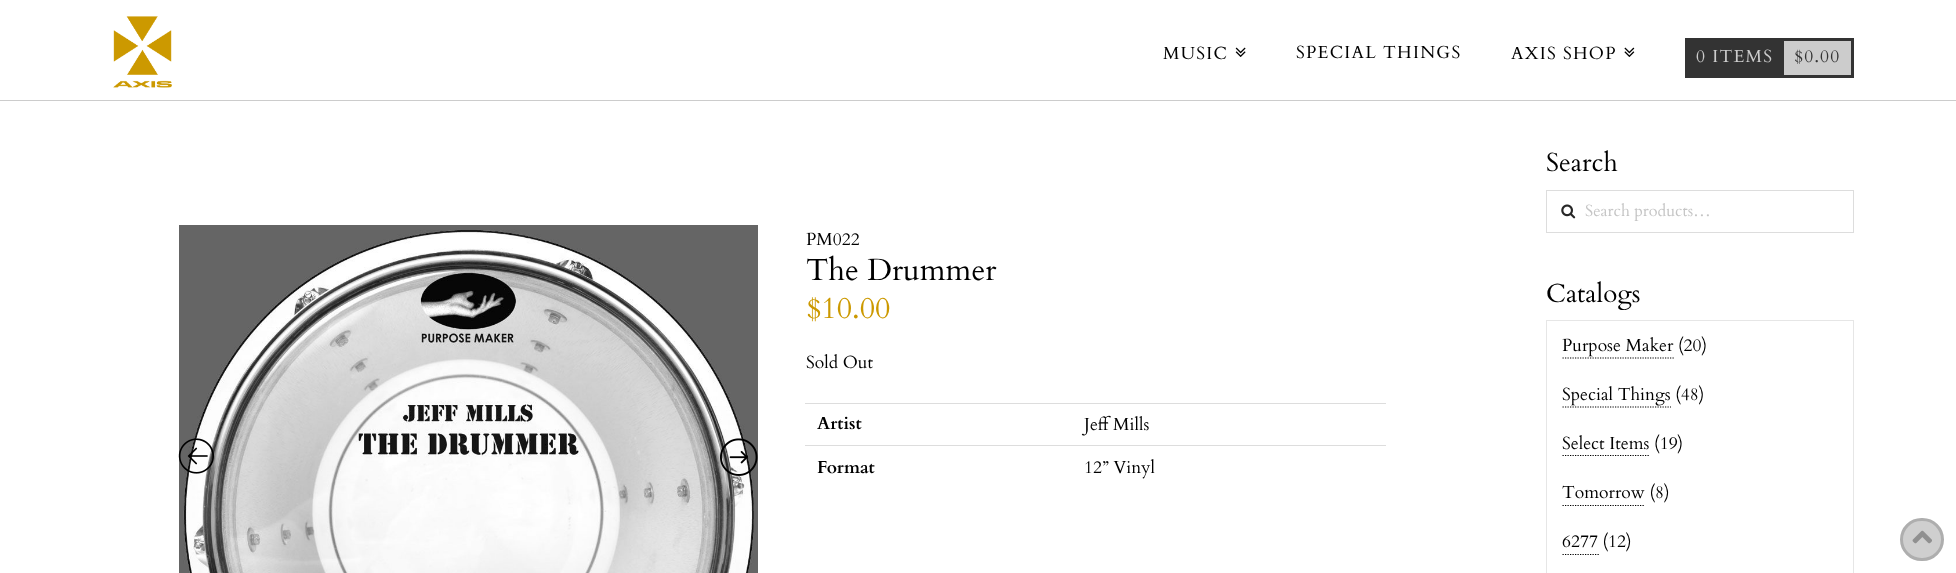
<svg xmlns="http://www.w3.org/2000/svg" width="1956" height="573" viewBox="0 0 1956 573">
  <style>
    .t1 { font: 17.5px Cardo; letter-spacing: 1.25px; fill: #000; }
    .t2 { font: 17.5px Cardo; letter-spacing: 1.25px; fill: #ccc; }
    .t3 { font: 17.5px Cardo; letter-spacing: 1.25px; fill: #333; }
    .t4 { font: 17.5px Cardo; fill: #000; }
    .t5 { font: 30.5px Cardo; fill: #000; }
    .t6 { font: 30px Cardo; fill: #c90; }
    .t7 { font: bold 17.5px Cardo; fill: #000; }
    .t8 { font: 26px Cardo; fill: #000; }
    .t9 { font: 16.25px Cardo; fill: #c5c5c5; }
  </style>
  <rect width="100%" height="100%" fill="#fff"/>
  <rect x="0" y="100" width="1956" height="1" fill="#ccc"/>
  <image x="113" y="16" width="59" height="72" href="images/1.png"/>
  <text x="1163" y="59" class="t1">MUSIC</text>
  <image x="1235" y="47" width="11" height="10" href="images/2.png"/>
  <text x="1296" y="58" class="t1">SPECIAL THINGS</text>
  <text x="1511" y="59" class="t1">AXIS SHOP</text>
  <image x="1624" y="47" width="11" height="10" href="images/3.png"/>
  <rect x="1784" y="41" width="67" height="34" fill="#ccc"/>
  <rect x="1685" y="38" width="169" height="3" fill="#333"/>
  <rect x="1851" y="38" width="3" height="40" fill="#333"/>
  <rect x="1685" y="75" width="169" height="3" fill="#333"/>
  <rect x="1685" y="41" width="99" height="34" fill="#333"/>
  <text x="1696" y="62" class="t2">0 ITEMS</text>
  <text x="1794" y="62" class="t3">$0.00</text>
  <image x="179" y="225" width="579" height="348" href="images/4.png"/>
  <image x="178" y="438" width="36" height="36" href="images/5.png"/>
  <image x="720" y="438" width="38" height="38" href="images/6.png"/>
  <text x="806" y="245" class="t4">PM022</text>
  <text x="806" y="280" class="t5">The Drummer</text>
  <text x="806" y="318" class="t6">$10.00</text>
  <text x="806" y="368" class="t4">Sold Out</text>
  <text x="817" y="429" class="t7">Artist</text>
  <rect x="805" y="403" width="581" height="1" fill="#ddd"/>
  <text x="1084" y="430" class="t4">Jeff Mills</text>
  <text x="817" y="473" class="t7">Format</text>
  <rect x="805" y="445" width="581" height="1" fill="#ddd"/>
  <text x="1084" y="473" class="t4">12” Vinyl</text>
  <text x="1546" y="171" class="t8">Search</text>
  <rect x="1546.5" y="190.5" width="307" height="42" fill="none" stroke="#ddd"/>
  <image x="1561" y="204" width="15" height="15" href="images/7.png"/>
  <text x="1585" y="216" class="t9">Search products…</text>
  <text x="1546" y="302" class="t8">Catalogs</text>
  <rect x="1546.5" y="320.5" width="307" height="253" fill="none" stroke="#e6e6e6"/>
  <text x="1562" y="351" class="t4">Purpose Maker (20)</text>
  <path d="M1562.5 358H1674" fill="none" stroke="#000" stroke-width="1.2" stroke-dasharray="1.25 1.25"/>
  <text x="1562" y="400" class="t4">Special Things (48)</text>
  <path d="M1562.5 407H1671" fill="none" stroke="#000" stroke-width="1.2" stroke-dasharray="1.25 1.25"/>
  <text x="1562" y="449" class="t4">Select Items (19)</text>
  <path d="M1562.5 455.5H1650" fill="none" stroke="#000" stroke-width="1.2" stroke-dasharray="1.25 1.25"/>
  <text x="1562" y="498" class="t4">Tomorrow (8)</text>
  <path d="M1562.5 505.5H1645" fill="none" stroke="#000" stroke-width="1.2" stroke-dasharray="1.25 1.25"/>
  <text x="1562" y="547" class="t4">6277 (12)</text>
  <path d="M1562.5 554.5H1599" fill="none" stroke="#000" stroke-width="1.2" stroke-dasharray="1.25 1.25"/>
  <rect x="1901.5" y="519.5" width="41" height="40" rx="20" fill="#cfcfcf" stroke="#aeaeae" stroke-width="3"/>
  <image x="1912" y="530" width="20" height="14" href="images/8.png"/>
</svg>
